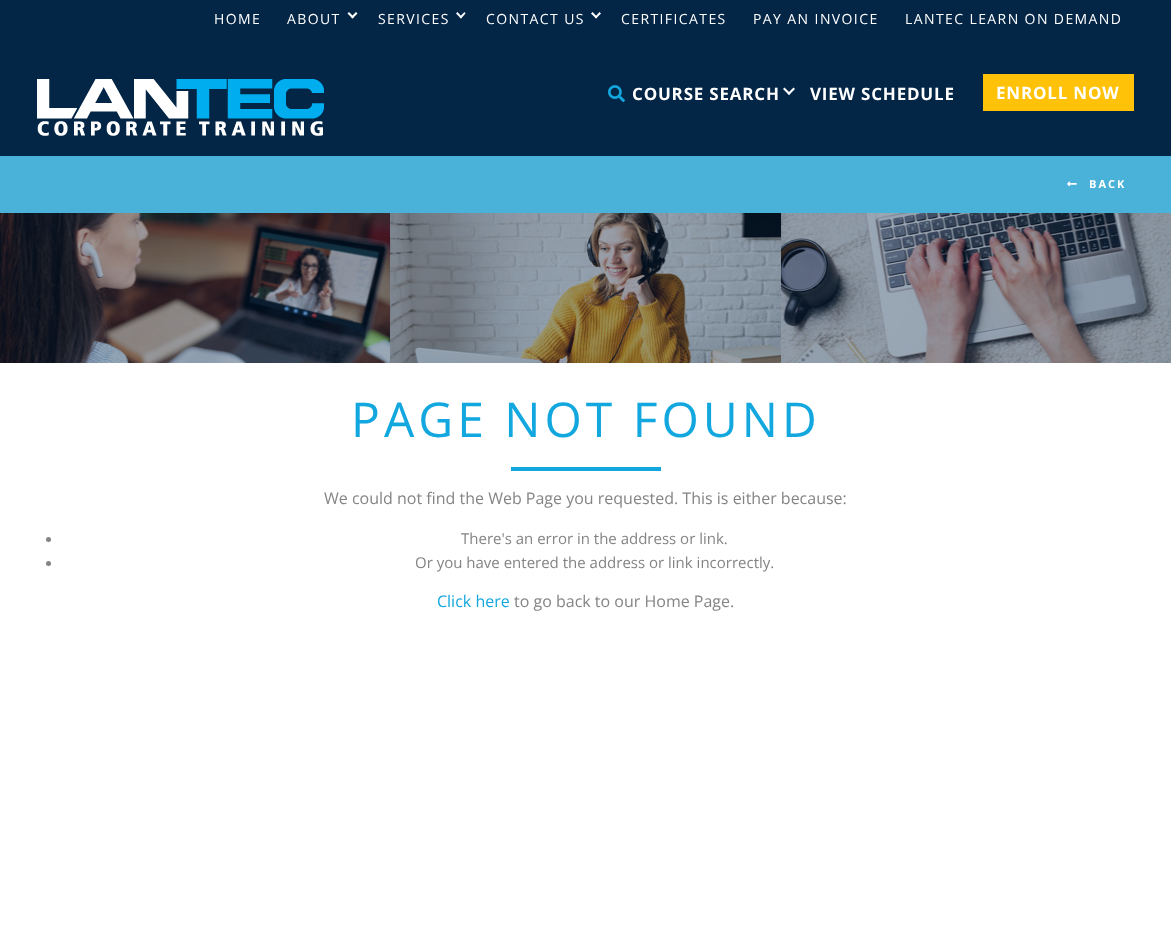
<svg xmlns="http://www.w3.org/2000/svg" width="1171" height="952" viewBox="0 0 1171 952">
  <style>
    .t1 { font: 14px Open Sans; letter-spacing: 1.4px; fill: #fff; }
    .t2 { font: bold 17px Open Sans; letter-spacing: 0.8px; fill: #fff; }
    .t3 { font: bold 11px Open Sans; letter-spacing: 2px; fill: #fff; }
    .t4 { font: 48px Open Sans; letter-spacing: 4px; fill: #12a7de; }
    .t5 { font: 16px Open Sans; fill: #848484; }
    .t6 { font: 15px Open Sans; fill: #848484; }
    .t7 { font: 16px Open Sans; fill: #12a7de; }
  </style>
  <rect width="100%" height="100%" fill="#032546"/>
  <text x="214" y="24" class="t1">HOME</text>
  <text x="287" y="24" class="t1">ABOUT</text>
  <path d="M352.5 18.5L347.5 13.5L349 12L354 17Z" fill="#fff"/>
  <path d="M352.5 18.5L351 17L356 12L357.5 13.5Z" fill="#fff"/>
  <text x="378" y="24" class="t1">SERVICES</text>
  <path d="M461 18.5L456 13.5L457.5 12L462 17Z" fill="#fff"/>
  <path d="M461 18.5L459.5 17L464.5 12L465.5 13.5Z" fill="#fff"/>
  <text x="486" y="24" class="t1">CONTACT US</text>
  <path d="M596 18.5L591 13.5L592.5 12L597.5 17Z" fill="#fff"/>
  <path d="M596 18.5L595 17L599.5 12L601 13.5Z" fill="#fff"/>
  <text x="621" y="24" class="t1">CERTIFICATES</text>
  <text x="753" y="24" class="t1">PAY AN INVOICE</text>
  <text x="905" y="24" class="t1">LANTEC LEARN ON DEMAND</text>
  <image x="37" y="79" width="287" height="57" href="images/1.png"/>
  <image x="608" y="85" width="17" height="18" href="images/2.png"/>
  <text x="632" y="100" class="t2">COURSE SEARCH</text>
  <path d="M789 95L783 89L784.5 87.5L790.5 93.5Z" fill="#fff"/>
  <path d="M789 95L787.5 93.5L793.5 87.5L795 89Z" fill="#fff"/>
  <text x="810" y="100" class="t2">VIEW SCHEDULE</text>
  <rect x="983" y="74" width="151" height="37" fill="#ffc208"/>
  <text x="996" y="99" class="t2">ENROLL NOW</text>
  <rect x="0" y="156" width="1171" height="57" fill="#4ab2d9"/>
  <image x="1067" y="181" width="10" height="6" href="images/3.png"/>
  <text x="1089" y="188" class="t3">BACK</text>
  <image x="0" y="213" width="390" height="150" href="images/4.png"/>
  <image x="390" y="213" width="391" height="150" href="images/5.png"/>
  <image x="781" y="213" width="390" height="150" href="images/6.png"/>
  <rect x="0" y="363" width="1171" height="589" fill="#fff"/>
  <text x="351" y="437" class="t4">PAGE NOT FOUND</text>
  <rect x="511" y="467" width="150" height="4" fill="#12a7de"/>
  <text x="324" y="504" class="t5">We could not find the Web Page you requested. This is either because:</text>
  <circle cx="48.5" cy="539.5" r="2.5" fill="#848484"/>
  <text x="461" y="544" class="t6">There's an error in the address or link.</text>
  <circle cx="48.5" cy="563.5" r="2.5" fill="#848484"/>
  <text x="415" y="568" class="t6">Or you have entered the address or link incorrectly.</text>
  <text x="437" y="607" class="t7">Click here</text>
  <text x="514" y="607" class="t5">to go back to our Home Page.</text>
</svg>
